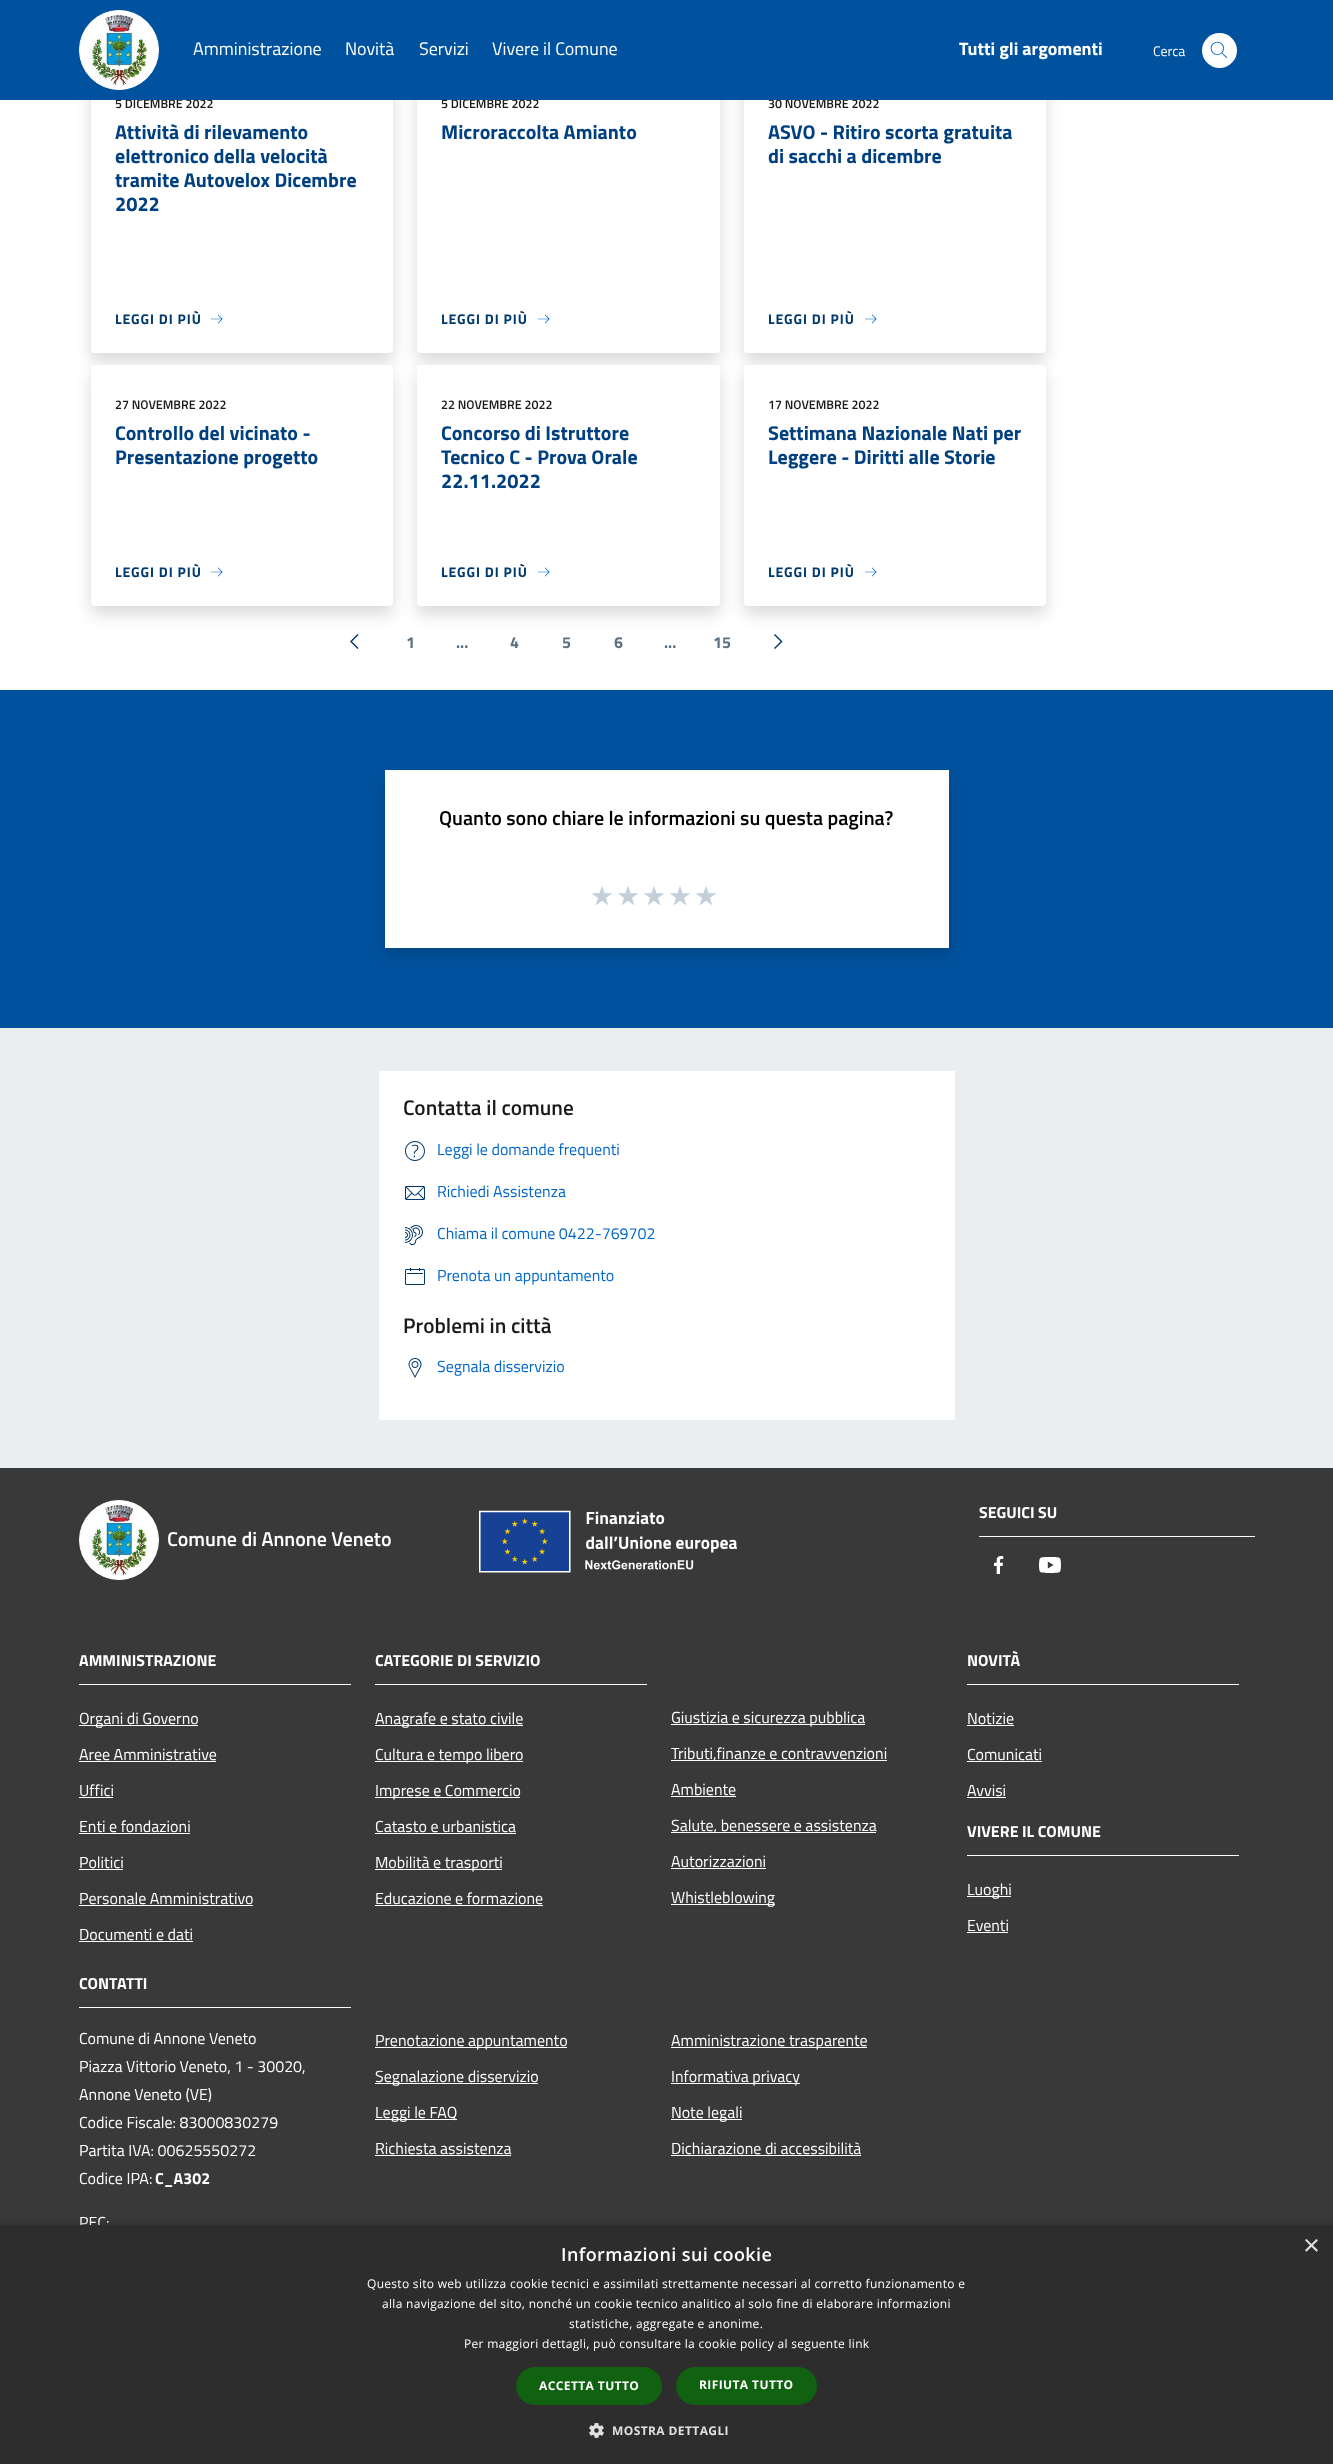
<svg xmlns="http://www.w3.org/2000/svg" width="1333" height="2464" viewBox="0 0 1333 2464">
  <style>
    .t1 { font: 600 12.5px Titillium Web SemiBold; fill: #1a1a1a; }
    .t2 { font: 18px Titillium Web; fill: #fff; }
    .t3 { font: bold 18px Titillium Web; fill: #fff; }
    .t4 { font: 14px Titillium Web; fill: #fff; }
    .t5 { font: bold 20px Titillium Web; fill: #004080; }
    .t6 { font: bold 14px Titillium Web; letter-spacing: 0.9px; fill: #00396e; }
    .t7 { font: bold 16px Titillium Web; fill: #5d7083; }
    .t8 { font: 600 20px Titillium Web SemiBold; fill: #000; }
    .t9 { font: 600 21.25px Titillium Web SemiBold; fill: #1a1a1a; }
    .t10 { font: 16px Titillium Web; fill: #06c; }
    .t11 { font: 600 20px Titillium Web SemiBold; fill: #fff; }
    .t12 { font: bold 16px Titillium Web; fill: #fff; }
    .t13 { font: 16px Titillium Web; fill: #fff; }
    .t14 { font: 29px Liberation Sans; fill: #e0e0e0; }
    .t15 { font: 600 18px Open Sans; letter-spacing: 0.4px; fill: #fff; }
    .t16 { font: 12px Open Sans; letter-spacing: 0.3px; fill: #fff; }
    .t17 { font: bold 12px Open Sans; letter-spacing: 0.4px; fill: #fff; }
    .t18 { font: bold 12px Open Sans; letter-spacing: 0.4px; fill: #e0e0e0; }
  </style>
  <rect width="100%" height="100%" fill="#fff"/>
  <rect x="91" y="-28" width="302" height="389" rx="4" fill="#00000026" filter="blur(8px)"/>
  <rect x="91" y="-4" width="302" height="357" rx="4" fill="#fff"/>
  <text x="115" y="108" class="t1">5 DICEMBRE 2022</text>
  <rect x="417" y="-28" width="303" height="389" rx="4" fill="#00000026" filter="blur(8px)"/>
  <rect x="417" y="-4" width="303" height="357" rx="4" fill="#fff"/>
  <text x="441" y="108" class="t1">5 DICEMBRE 2022</text>
  <rect x="744" y="-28" width="302" height="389" rx="4" fill="#00000026" filter="blur(8px)"/>
  <rect x="744" y="-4" width="302" height="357" rx="4" fill="#fff"/>
  <text x="768" y="108" class="t1">30 NOVEMBRE 2022</text>
  <rect x="0" y="0" width="1333" height="100" fill="#00529e"/>
  <circle cx="119" cy="50" r="39.5" fill="#fff" stroke="#fff"/>
  <image x="88" y="15" width="63" height="71" href="images/1.png"/>
  <text x="193" y="55" class="t2">Amministrazione</text>
  <text x="345" y="55" class="t2">Novità</text>
  <text x="419" y="55" class="t2">Servizi</text>
  <text x="492" y="55" class="t2">Vivere il Comune</text>
  <text x="959" y="55" class="t3">Tutti gli argomenti</text>
  <text x="1153" y="56" class="t4">Cerca</text>
  <circle cx="1219.5" cy="50.5" r="17.5" fill="#fff"/>
  <image x="1210" y="41" width="18" height="18" href="images/2.png"/>
  <text x="115" y="139" class="t5">Attività di rilevamento</text>
  <text x="115" y="163" class="t5">elettronico della velocità</text>
  <text x="115" y="187" class="t5">tramite Autovelox Dicembre</text>
  <text x="115" y="211" class="t5">2022</text>
  <text x="115" y="324" class="t6">LEGGI DI PIÙ</text>
  <image x="211" y="314" width="12" height="10" href="images/3.png"/>
  <text x="441" y="139" class="t5">Microraccolta Amianto</text>
  <text x="441" y="324" class="t6">LEGGI DI PIÙ</text>
  <image x="538" y="314" width="12" height="10" href="images/3.png"/>
  <text x="768" y="139" class="t5">ASVO - Ritiro scorta gratuita</text>
  <text x="768" y="163" class="t5">di sacchi a dicembre</text>
  <text x="768" y="324" class="t6">LEGGI DI PIÙ</text>
  <image x="865" y="314" width="12" height="10" href="images/3.png"/>
  <image x="350" y="634" width="9" height="15" href="images/4.png"/>
  <rect x="91" y="373" width="302" height="241" rx="4" fill="#00000026" filter="blur(8px)"/>
  <rect x="91" y="365" width="302" height="241" rx="4" fill="#fff"/>
  <text x="115" y="409" class="t1">27 NOVEMBRE 2022</text>
  <text x="115" y="440" class="t5">Controllo del vicinato -</text>
  <text x="115" y="464" class="t5">Presentazione progetto</text>
  <text x="115" y="577" class="t6">LEGGI DI PIÙ</text>
  <image x="211" y="567" width="12" height="10" href="images/3.png"/>
  <rect x="417" y="373" width="303" height="241" rx="4" fill="#00000026" filter="blur(8px)"/>
  <rect x="417" y="365" width="303" height="241" rx="4" fill="#fff"/>
  <text x="441" y="409" class="t1">22 NOVEMBRE 2022</text>
  <text x="441" y="440" class="t5">Concorso di Istruttore</text>
  <text x="441" y="464" class="t5">Tecnico C - Prova Orale</text>
  <text x="441" y="488" class="t5">22.11.2022</text>
  <text x="441" y="577" class="t6">LEGGI DI PIÙ</text>
  <image x="538" y="567" width="12" height="10" href="images/3.png"/>
  <image x="774" y="634" width="9" height="15" href="images/5.png"/>
  <rect x="744" y="373" width="302" height="241" rx="4" fill="#00000026" filter="blur(8px)"/>
  <rect x="744" y="365" width="302" height="241" rx="4" fill="#fff"/>
  <text x="768" y="409" class="t1">17 NOVEMBRE 2022</text>
  <text x="768" y="440" class="t5">Settimana Nazionale Nati per</text>
  <text x="768" y="464" class="t5">Leggere - Diritti alle Storie</text>
  <text x="768" y="577" class="t6">LEGGI DI PIÙ</text>
  <image x="865" y="567" width="12" height="10" href="images/3.png"/>
  <text x="406" y="648" class="t7">1</text>
  <text x="456" y="648" class="t7">...</text>
  <text x="510" y="648" class="t7">4</text>
  <text x="562" y="648" class="t7">5</text>
  <text x="614" y="648" class="t7">6</text>
  <text x="664" y="648" class="t7">...</text>
  <text x="713" y="648" class="t7">15</text>
  <rect x="0" y="690" width="1333" height="338" fill="#00529e"/>
  <rect x="385" y="778" width="564" height="178" fill="#00000026" filter="blur(8px)"/>
  <rect x="385" y="770" width="564" height="178" fill="#fff"/>
  <text x="439" y="825" class="t8">Quanto sono chiare le informazioni su questa pagina?</text>
  <image x="592" y="886" width="20" height="20" href="images/6.png"/>
  <image x="618" y="886" width="20" height="20" href="images/6.png"/>
  <image x="644" y="886" width="20" height="20" href="images/6.png"/>
  <image x="670" y="886" width="20" height="20" href="images/6.png"/>
  <image x="696" y="886" width="20" height="20" href="images/6.png"/>
  <rect x="0" y="1028" width="1333" height="440" fill="#ebeef0"/>
  <rect x="379" y="1071" width="576" height="349" fill="#fff"/>
  <text x="403" y="1115" class="t9">Contatta il comune</text>
  <image x="405" y="1141" width="20" height="20" href="images/7.png"/>
  <text x="437" y="1155" class="t10">Leggi le domande frequenti</text>
  <image x="405" y="1186" width="20" height="14" href="images/8.png"/>
  <text x="437" y="1197" class="t10">Richiedi Assistenza</text>
  <image x="405" y="1225" width="18" height="20" href="images/9.png"/>
  <text x="437" y="1239" class="t10">Chiama il comune 0422-769702</text>
  <image x="405" y="1268" width="20" height="17" href="images/10.png"/>
  <text x="437" y="1281" class="t10">Prenota un appuntamento</text>
  <text x="403" y="1333" class="t9">Problemi in città</text>
  <image x="408" y="1358" width="14" height="20" href="images/11.png"/>
  <text x="437" y="1372" class="t10">Segnala disservizio</text>
  <rect x="0" y="1468" width="1333" height="757" fill="#393939"/>
  <circle cx="119" cy="1540" r="39.5" fill="#fff" stroke="#fff"/>
  <image x="88" y="1505" width="63" height="71" href="images/12.png"/>
  <text x="167" y="1546" class="t11">Comune di Annone Veneto</text>
  <image x="479" y="1510" width="258" height="63" href="images/13.png"/>
  <rect x="979" y="1536" width="276" height="1" fill="#fff"/>
  <text x="979" y="1518" class="t12">SEGUICI SU</text>
  <image x="994" y="1556" width="10" height="18" href="images/14.png"/>
  <image x="1039" y="1557" width="22" height="16" href="images/15.png"/>
  <rect x="79" y="1684" width="272" height="1" fill="#fff"/>
  <text x="79" y="1666" class="t12">AMMINISTRAZIONE</text>
  <rect x="79" y="1725" width="119" height="1" fill="#fff"/>
  <text x="79" y="1724" class="t13">Organi di Governo</text>
  <text x="79" y="1760" class="t13">Aree Amministrative</text>
  <rect x="79" y="1761" width="137" height="1" fill="#fff"/>
  <text x="79" y="1796" class="t13">Uffici</text>
  <rect x="79" y="1797" width="34" height="1" fill="#fff"/>
  <text x="79" y="1832" class="t13">Enti e fondazioni</text>
  <rect x="79" y="1833" width="111" height="1" fill="#fff"/>
  <text x="79" y="1868" class="t13">Politici</text>
  <rect x="79" y="1869" width="44" height="1" fill="#fff"/>
  <text x="79" y="1904" class="t13">Personale Amministrativo</text>
  <rect x="79" y="1905" width="174" height="1" fill="#fff"/>
  <text x="79" y="1940" class="t13">Documenti e dati</text>
  <rect x="79" y="1941" width="114" height="1" fill="#fff"/>
  <rect x="375" y="1684" width="272" height="1" fill="#fff"/>
  <text x="375" y="1666" class="t12">CATEGORIE DI SERVIZIO</text>
  <rect x="375" y="1725" width="148" height="1" fill="#fff"/>
  <text x="375" y="1724" class="t13">Anagrafe e stato civile</text>
  <rect x="375" y="1761" width="148" height="1" fill="#fff"/>
  <text x="375" y="1760" class="t13">Cultura e tempo libero</text>
  <rect x="375" y="1797" width="145" height="1" fill="#fff"/>
  <text x="375" y="1796" class="t13">Imprese e Commercio</text>
  <text x="375" y="1832" class="t13">Catasto e urbanistica</text>
  <rect x="375" y="1833" width="141" height="1" fill="#fff"/>
  <rect x="375" y="1869" width="127" height="1" fill="#fff"/>
  <text x="375" y="1868" class="t13">Mobilità e trasporti</text>
  <text x="375" y="1904" class="t13">Educazione e formazione</text>
  <rect x="375" y="1905" width="168" height="1" fill="#fff"/>
  <rect x="671" y="1724" width="194" height="1" fill="#fff"/>
  <text x="671" y="1723" class="t13">Giustizia e sicurezza pubblica</text>
  <rect x="671" y="1760" width="216" height="1" fill="#fff"/>
  <text x="671" y="1759" class="t13">Tributi,finanze e contravvenzioni</text>
  <text x="671" y="1795" class="t13">Ambiente</text>
  <rect x="671" y="1796" width="65" height="1" fill="#fff"/>
  <rect x="671" y="1832" width="205" height="1" fill="#fff"/>
  <text x="671" y="1831" class="t13">Salute, benessere e assistenza</text>
  <text x="671" y="1867" class="t13">Autorizzazioni</text>
  <rect x="671" y="1868" width="95" height="1" fill="#fff"/>
  <rect x="671" y="1904" width="104" height="1" fill="#fff"/>
  <text x="671" y="1903" class="t13">Whistleblowing</text>
  <rect x="967" y="1684" width="272" height="1" fill="#fff"/>
  <text x="967" y="1666" class="t12">NOVITÀ</text>
  <text x="967" y="1724" class="t13">Notizie</text>
  <rect x="967" y="1725" width="47" height="1" fill="#fff"/>
  <text x="967" y="1760" class="t13">Comunicati</text>
  <rect x="967" y="1761" width="75" height="1" fill="#fff"/>
  <text x="967" y="1796" class="t13">Avvisi</text>
  <rect x="967" y="1797" width="39" height="1" fill="#fff"/>
  <rect x="967" y="1855" width="272" height="1" fill="#fff"/>
  <text x="967" y="1837" class="t12">VIVERE IL COMUNE</text>
  <rect x="967" y="1896" width="44" height="1" fill="#fff"/>
  <text x="967" y="1895" class="t13">Luoghi</text>
  <text x="967" y="1931" class="t13">Eventi</text>
  <rect x="967" y="1932" width="41" height="1" fill="#fff"/>
  <rect x="79" y="2007" width="272" height="1" fill="#fff"/>
  <text x="79" y="1989" class="t12">CONTATTI</text>
  <text x="79" y="2044" class="t13">Comune di Annone Veneto</text>
  <text x="79" y="2072" class="t13">Piazza Vittorio Veneto, 1 - 30020,</text>
  <text x="79" y="2100" class="t13">Annone Veneto (VE)</text>
  <text x="79" y="2128" class="t13">Codice Fiscale: 83000830279</text>
  <text x="79" y="2156" class="t13">Partita IVA: 00625550272</text>
  <text x="79" y="2184" class="t13">Codice IPA:</text>
  <text x="155" y="2184" class="t12">C_A302</text>
  <text x="79" y="2228" class="t13">PEC:</text>
  <rect x="375" y="2047" width="192" height="1" fill="#fff"/>
  <text x="375" y="2046" class="t13">Prenotazione appuntamento</text>
  <rect x="375" y="2083" width="163" height="1" fill="#fff"/>
  <text x="375" y="2082" class="t13">Segnalazione disservizio</text>
  <rect x="375" y="2119" width="82" height="1" fill="#fff"/>
  <text x="375" y="2118" class="t13">Leggi le FAQ</text>
  <text x="375" y="2154" class="t13">Richiesta assistenza</text>
  <rect x="375" y="2155" width="136" height="1" fill="#fff"/>
  <rect x="671" y="2047" width="196" height="1" fill="#fff"/>
  <text x="671" y="2046" class="t13">Amministrazione trasparente</text>
  <rect x="671" y="2083" width="129" height="1" fill="#fff"/>
  <text x="671" y="2082" class="t13">Informativa privacy</text>
  <rect x="671" y="2119" width="71" height="1" fill="#fff"/>
  <text x="671" y="2118" class="t13">Note legali</text>
  <text x="671" y="2154" class="t13">Dichiarazione di accessibilità</text>
  <rect x="671" y="2155" width="190" height="1" fill="#fff"/>
  <rect x="1" y="2227" width="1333" height="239" fill="#00000059" filter="blur(4px)"/>
  <rect x="0" y="2225" width="1333" height="239" fill="#2d2d2d"/>
  <text x="1303" y="2255" class="t14">×</text>
  <text x="561" y="2261" class="t15">Informazioni sui cookie</text>
  <text x="367" y="2288" class="t16">Questo sito web utilizza cookie tecnici e assimilati strettamente necessari al corretto funzionamento e</text>
  <text x="382" y="2308" class="t16">alla navigazione del sito, nonché un cookie tecnico analitico al solo fine di elaborare informazioni</text>
  <text x="569" y="2328" class="t16">statistiche, aggregate e anonime.</text>
  <text x="464" y="2348" class="t16">Per maggiori dettagli, può consultare la cookie policy al seguente link</text>
  <rect x="516" y="2367" width="146" height="38" rx="19" fill="#106110"/>
  <text x="539" y="2390" class="t17">ACCETTA TUTTO</text>
  <rect x="676" y="2367" width="141" height="38" rx="19" fill="#106110"/>
  <text x="699" y="2389" class="t17">RIFIUTA TUTTO</text>
  <image x="589" y="2423" width="15" height="15" href="images/16.png"/>
  <text x="612" y="2435" class="t18">MOSTRA DETTAGLI</text>
</svg>
